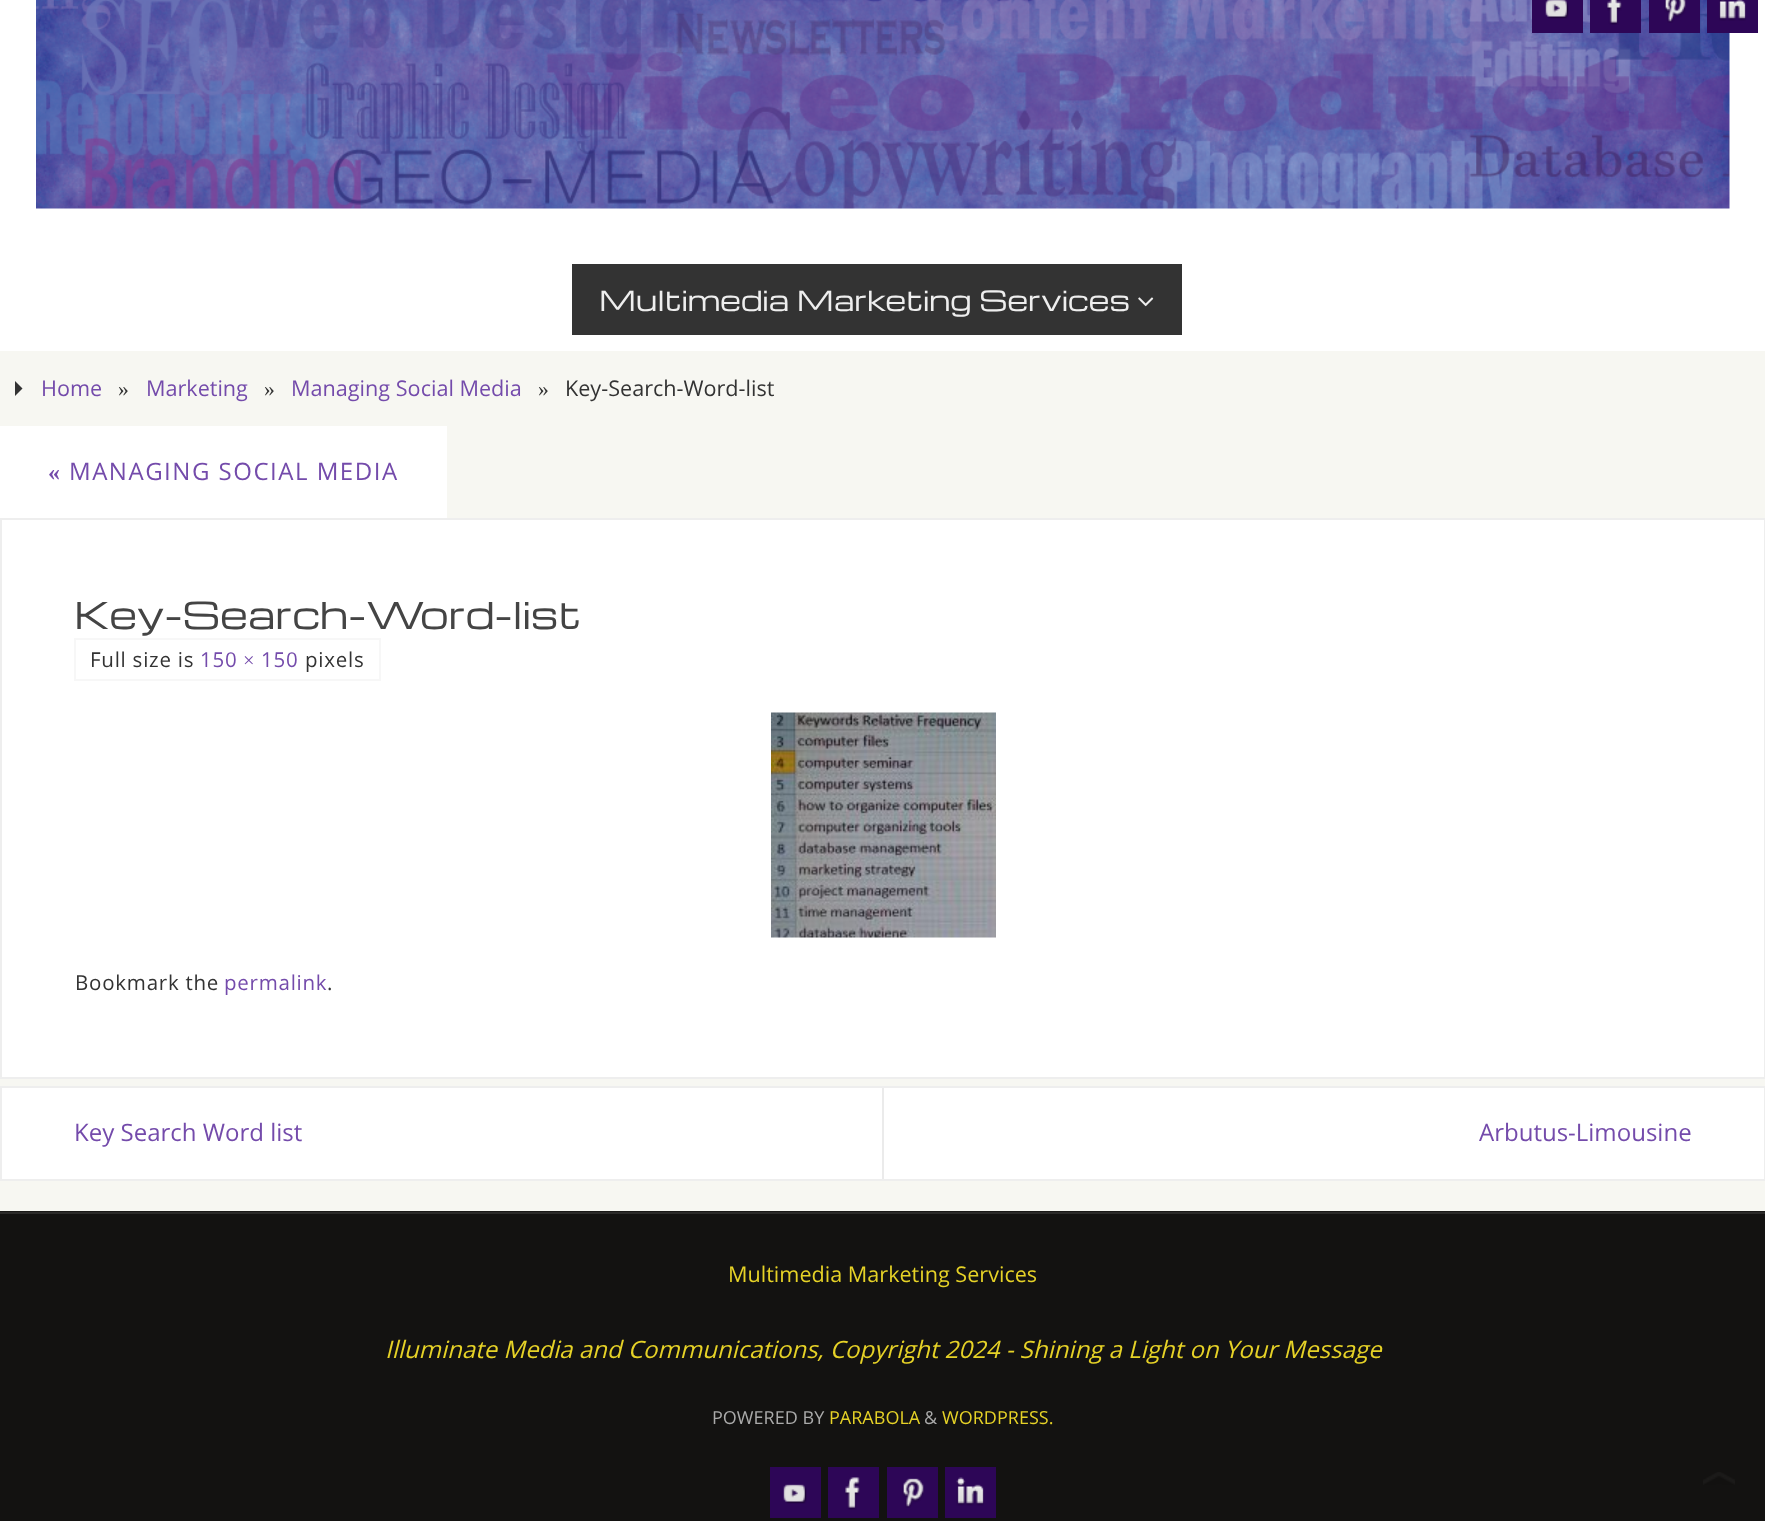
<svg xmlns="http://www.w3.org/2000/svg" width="1765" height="1521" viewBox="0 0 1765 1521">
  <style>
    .t1 { font: 27px Michroma; fill: #eee; }
    .t2 { font: 21.6px Open Sans; fill: #744bab; }
    .t3 { font: 21.6px Liberation Serif; fill: #333; }
    .t4 { font: 21.6px Open Sans; fill: #333; }
    .t5 { font: bold 24px Liberation Serif; letter-spacing: 1.5px; fill: #744bab; }
    .t6 { font: 24px Open Sans; letter-spacing: 1.5px; fill: #744bab; }
    .t7 { font: 36px Michroma; fill: #444; }
    .t8 { font: 20.5px Open Sans; letter-spacing: 0.75px; fill: #333; }
    .t9 { font: 20.5px Open Sans; letter-spacing: 0.75px; fill: #744bab; }
    .t10 { font: 20.5px Liberation Serif; letter-spacing: 0.75px; fill: #744bab; }
    .t11 { font: 24px Open Sans; fill: #744bab; }
    .t12 { font: 21.6px Open Sans; fill: #e6d227; }
    .t13 { font: italic 24px Open Sans; fill: #e6d227; }
    .t14 { font: 18px Open Sans; fill: #aaa; }
    .t15 { font: 18px Open Sans; fill: #e6d227; }
  </style>
  <rect width="100%" height="100%" fill="#f7f7f2"/>
  <rect x="0" y="0" width="1765" height="351" fill="#fff"/>
  <image x="36" y="0" width="1694" height="209" href="images/1.png"/>
  <rect x="1532" y="0" width="51" height="33" fill="#2d0657"/>
  <image x="1545" y="0" width="24" height="19" href="images/2.png"/>
  <rect x="1590" y="0" width="51" height="33" fill="#2d0657"/>
  <image x="1607" y="0" width="15" height="25" href="images/3.png"/>
  <rect x="1649" y="0" width="51" height="33" fill="#2d0657"/>
  <image x="1664" y="0" width="22" height="23" href="images/4.png"/>
  <rect x="1707" y="0" width="51" height="33" fill="#2d0657"/>
  <image x="1719" y="0" width="27" height="21" href="images/5.png"/>
  <rect x="572" y="264" width="610" height="71" fill="#333"/>
  <text x="599" y="311" class="t1">Multimedia Marketing Services</text>
  <image x="1138" y="297" width="16" height="10" href="images/6.png"/>
  <path d="M15 396V381L22.5 388.5Z" fill="#333"/>
  <text x="41" y="396" class="t2">Home</text>
  <text x="118" y="396" class="t3">»</text>
  <text x="146" y="396" class="t2">Marketing</text>
  <text x="264" y="396" class="t3">»</text>
  <text x="291" y="396" class="t2">Managing Social Media</text>
  <text x="538" y="396" class="t3">»</text>
  <text x="565" y="396" class="t4">Key-Search-Word-list</text>
  <rect x="0" y="426" width="447" height="92" fill="#fff"/>
  <text x="48" y="480" class="t5">«</text>
  <text x="69" y="480" class="t6">MANAGING SOCIAL MEDIA</text>
  <rect x="1" y="519" width="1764" height="559" fill="#fff" stroke="#eee" stroke-width="2"/>
  <text x="74" y="629" class="t7">Key-Search-Word-list</text>
  <rect x="75" y="639" width="305" height="41" fill="none" stroke="#f7f7f7" stroke-width="2"/>
  <text x="90" y="667" class="t8">Full size is</text>
  <text x="200" y="667" class="t9">150</text>
  <text x="243" y="667" class="t10">×</text>
  <text x="261" y="667" class="t9">150</text>
  <text x="305" y="667" class="t8">pixels</text>
  <image x="771" y="712" width="225" height="226" href="images/7.png"/>
  <text x="75" y="990" class="t8">Bookmark the</text>
  <text x="224" y="990" class="t9">permalink</text>
  <text x="327" y="990" class="t8">.</text>
  <rect x="1" y="1087" width="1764" height="93" fill="#fff" stroke="#eee" stroke-width="2"/>
  <rect x="882" y="1088" width="2" height="91" fill="#ebebeb"/>
  <text x="74" y="1141" class="t11">Key Search Word list</text>
  <text x="1479" y="1141" class="t11">Arbutus-Limousine</text>
  <rect x="0" y="1211" width="1765" height="1" fill="#1a1917"/>
  <rect x="0" y="1214" width="1765" height="307" fill="#131211"/>
  <rect x="0" y="1212" width="1765" height="2" fill="#2b2a29"/>
  <text x="728" y="1282" class="t12">Multimedia Marketing Services</text>
  <text x="385" y="1358" class="t13">Illuminate Media and Communications, Copyright 2024 - Shining a Light on Your Message</text>
  <text x="712" y="1424" class="t14">POWERED BY</text>
  <text x="829" y="1424" class="t15">PARABOLA</text>
  <text x="924" y="1424" class="t14">&amp;</text>
  <text x="942" y="1424" class="t15">WORDPRESS.</text>
  <rect x="770" y="1467" width="51" height="51" fill="#2d0657"/>
  <image x="783" y="1484" width="24" height="20" href="images/8.png"/>
  <rect x="828" y="1467" width="51" height="51" fill="#2d0657"/>
  <image x="845" y="1477" width="15" height="33" href="images/9.png"/>
  <rect x="887" y="1467" width="51" height="51" fill="#2d0657"/>
  <image x="902" y="1478" width="22" height="30" href="images/10.png"/>
  <rect x="945" y="1467" width="51" height="51" fill="#2d0657"/>
  <image x="956" y="1477" width="28" height="29" href="images/11.png"/>
  <image x="1703" y="1472" width="32" height="13" href="images/12.png"/>
</svg>
